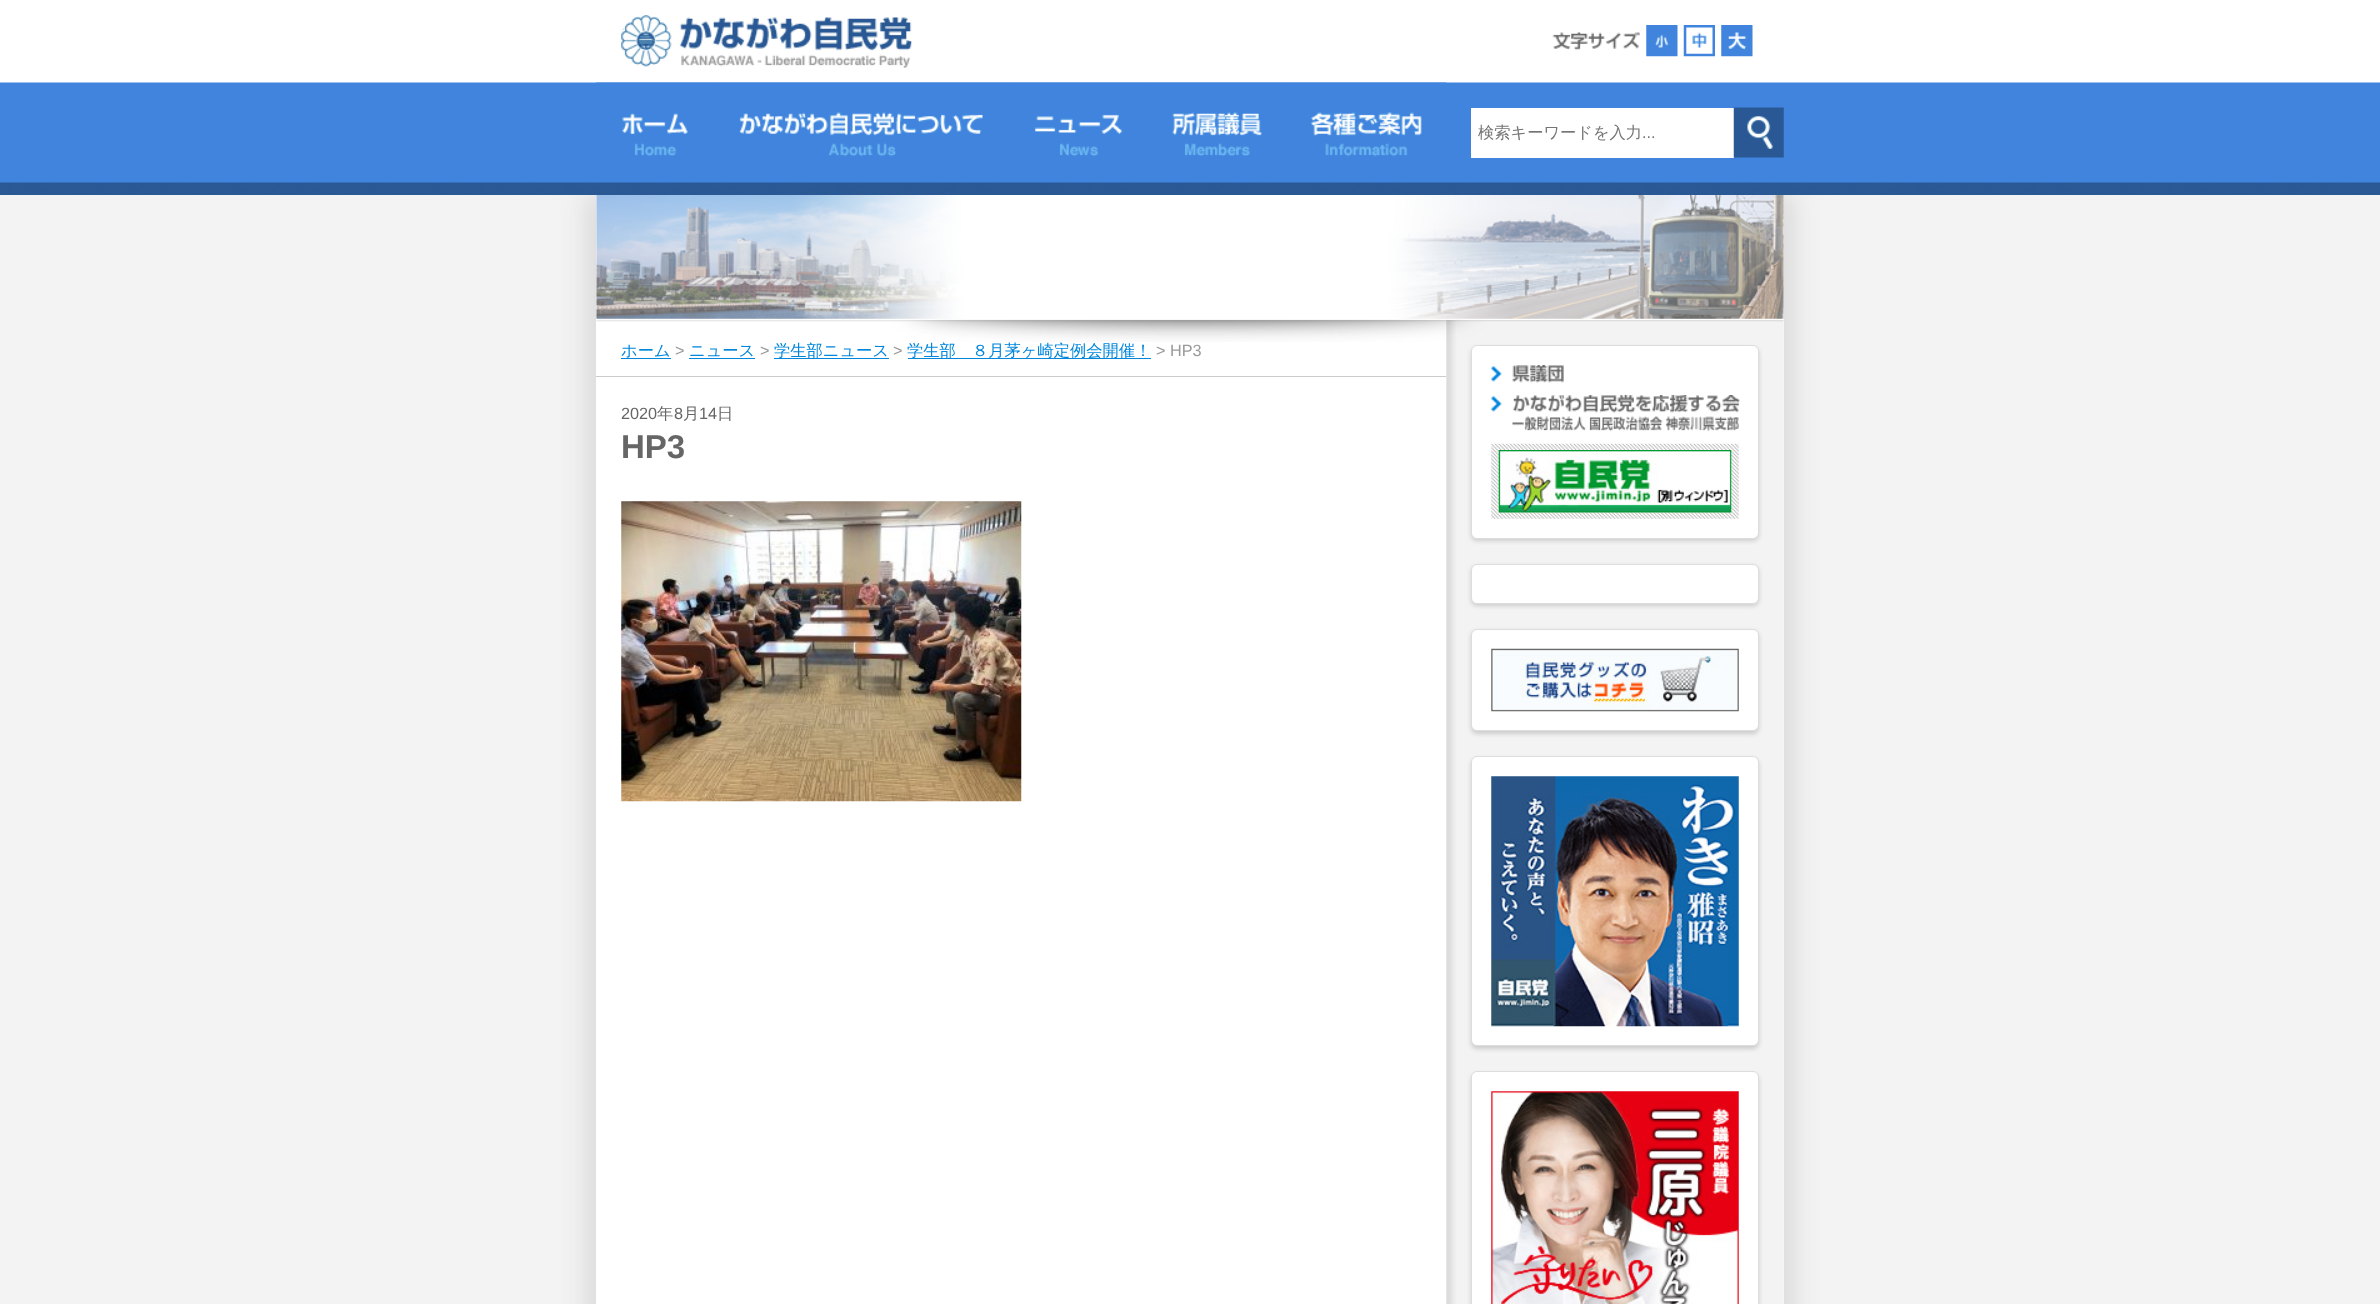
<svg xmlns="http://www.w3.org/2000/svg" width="2380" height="1304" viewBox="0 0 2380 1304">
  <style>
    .t1 { font: 500 16.25px WenQuanYi Zen Hei; fill: #757575; }
    .t2 { font: 16.25px Liberation Sans; fill: #757575; }
    .t3 { font: 500 16.25px WenQuanYi Zen Hei; fill: #0086db; }
    .t4 { font: 16.25px Liberation Sans; fill: #999; }
    .t5 { font: 16.25px Liberation Sans; fill: #666; }
    .t6 { font: 500 16.25px WenQuanYi Zen Hei; fill: #666; }
    .t7 { font: bold 33px Liberation Sans; fill: #666; }
  </style>
  <rect width="100%" height="100%" fill="#f3f3f3"/>
  <rect x="0" y="0" width="2380" height="83" fill="#fff"/>
  <image x="621" y="15" width="291" height="53" href="images/1.png"/>
  <image x="1552" y="32" width="88" height="19" href="images/2.png"/>
  <image x="1646" y="25" width="32" height="32" href="images/3.png"/>
  <image x="1683" y="25" width="32" height="32" href="images/4.png"/>
  <image x="1721" y="25" width="32" height="32" href="images/5.png"/>
  <rect x="609" y="195" width="1187" height="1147" fill="#ddd" filter="blur(12.5px)"/>
  <rect x="584" y="195" width="1187" height="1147" fill="#ddd" filter="blur(12.5px)"/>
  <image x="0" y="82" width="2380" height="113" href="images/6.png"/>
  <image x="596" y="82" width="118" height="74" href="images/7.png"/>
  <image x="713" y="82" width="296" height="75" href="images/8.png"/>
  <image x="1008" y="82" width="140" height="75" href="images/9.png"/>
  <image x="1147" y="82" width="140" height="74" href="images/10.png"/>
  <image x="1286" y="82" width="161" height="75" href="images/11.png"/>
  <rect x="1471" y="108" width="263" height="50" fill="#fff"/>
  <text x="1478" y="138" class="t1">検索キーワードを入力</text>
  <text x="1642" y="138" class="t2">...</text>
  <image x="1733" y="107" width="51" height="51" href="images/12.png"/>
  <rect x="596" y="195" width="1188" height="1109" fill="#fff"/>
  <image x="1446" y="195" width="338" height="1109" href="images/13.png"/>
  <rect x="1471" y="348" width="288" height="193" rx="6" fill="#ccc" filter="blur(2px)"/>
  <image x="596" y="195" width="1188" height="147" href="images/14.png"/>
  <rect x="596" y="376" width="850" height="1" fill="#ccc"/>
  <text x="621" y="356" class="t3">ホーム</text>
  <rect x="621" y="358" width="50" height="1" fill="#0086db"/>
  <text x="675" y="356" class="t4">&gt;</text>
  <text x="689" y="356" class="t3">ニュース</text>
  <rect x="689" y="358" width="66" height="1" fill="#0086db"/>
  <text x="760" y="356" class="t4">&gt;</text>
  <rect x="774" y="358" width="115" height="1" fill="#0086db"/>
  <text x="774" y="356" class="t3">学生部ニュース</text>
  <text x="893" y="356" class="t4">&gt;</text>
  <rect x="908" y="358" width="243" height="1" fill="#0086db"/>
  <text x="907" y="356" class="t3">学生部　８月茅ヶ崎定例会開催！</text>
  <text x="1156" y="356" class="t4">&gt; HP3</text>
  <text x="621" y="419" class="t5">2020</text>
  <text x="657" y="419" class="t6">年</text>
  <text x="674" y="419" class="t5">8</text>
  <text x="683" y="419" class="t6">月</text>
  <text x="699" y="419" class="t5">14</text>
  <text x="717" y="419" class="t6">日</text>
  <text x="621" y="458" class="t7">HP3</text>
  <image x="621" y="501" width="401" height="301" href="images/15.png"/>
  <rect x="1471.5" y="345.5" width="287" height="193" rx="5.5" fill="#fff" stroke="#ddd"/>
  <image x="1491" y="365" width="73" height="18" href="images/16.png"/>
  <image x="1491" y="395" width="249" height="37" href="images/17.png"/>
  <image x="1491" y="443" width="248" height="76" href="images/18.png"/>
  <image x="1498" y="450" width="234" height="63" href="images/19.png"/>
  <rect x="1471" y="566" width="288" height="40" rx="6" fill="#ccc" filter="blur(2px)"/>
  <rect x="1471.5" y="564.5" width="287" height="39" rx="5.5" fill="#fff" stroke="#ddd"/>
  <rect x="1471" y="631" width="288" height="103" rx="6" fill="#ccc" filter="blur(2px)"/>
  <rect x="1471.5" y="629.5" width="287" height="101" rx="5.5" fill="#fff" stroke="#ddd"/>
  <image x="1491" y="648" width="248" height="64" href="images/20.png"/>
  <rect x="1471" y="759" width="288" height="290" rx="6" fill="#ccc" filter="blur(2px)"/>
  <rect x="1471.5" y="756.5" width="287" height="289" rx="5.5" fill="#fff" stroke="#ddd"/>
  <image x="1491" y="776" width="248" height="251" href="images/21.png"/>
  <rect x="1471" y="1074" width="288" height="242" rx="6" fill="#ccc" filter="blur(2px)"/>
  <rect x="1471.5" y="1071.5" width="287" height="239" rx="5.5" fill="#fff" stroke="#ddd"/>
  <image x="1491" y="1091" width="248" height="213" href="images/22.png"/>
</svg>
